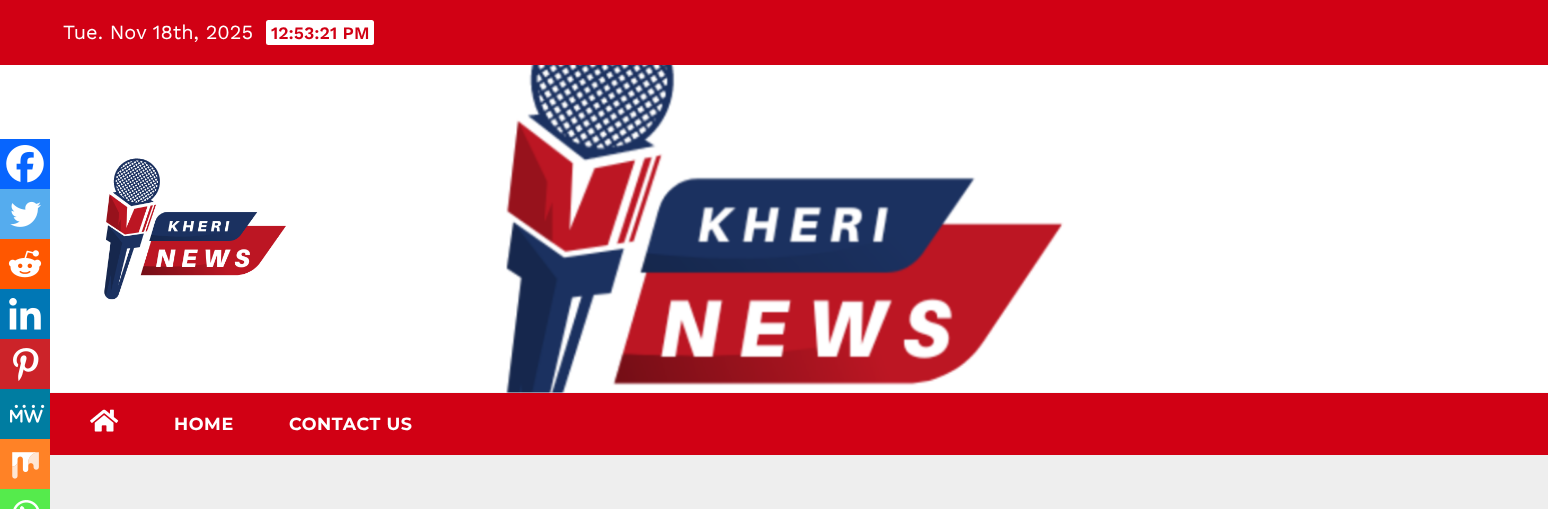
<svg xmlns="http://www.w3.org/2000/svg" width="1548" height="509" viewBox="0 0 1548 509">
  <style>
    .t1 { font: 20px Work Sans; fill: #fff; }
    .t2 { font: 600 17.5px Work Sans; fill: #d10014; }
    .t3 { font: bold 17.5px Montserrat; letter-spacing: 0.6px; fill: #fff; }
  </style>
  <rect width="100%" height="100%" fill="#eee"/>
  <image x="0" y="65" width="1548" height="328" href="images/9.png"/>
  <rect x="0" y="139" width="50" height="50" fill="#0765fe"/>
  <image x="6" y="145" width="38" height="38" href="images/1.png"/>
  <rect x="0" y="189" width="50" height="50" fill="#55acee"/>
  <image x="10" y="201" width="31" height="26" href="images/2.png"/>
  <rect x="0" y="239" width="50" height="50" fill="#ff5700"/>
  <image x="8" y="250" width="34" height="28" href="images/3.png"/>
  <rect x="0" y="289" width="50" height="50" fill="#0077b5"/>
  <image x="9" y="298" width="32" height="32" href="images/4.png"/>
  <rect x="0" y="339" width="50" height="50" fill="#cc2329"/>
  <image x="13" y="348" width="26" height="33" href="images/5.png"/>
  <rect x="0" y="389" width="50" height="50" fill="#007da1"/>
  <image x="10" y="404" width="35" height="19" href="images/6.png"/>
  <rect x="0" y="439" width="50" height="50" fill="#ff8226"/>
  <image x="12" y="452" width="27" height="27" href="images/7.png"/>
  <rect x="0" y="489" width="50" height="20" fill="#55eb4c"/>
  <image x="13" y="500" width="27" height="9" href="images/8.png"/>
  <rect x="0" y="0" width="1548" height="65" fill="#d10014"/>
  <text x="63" y="39" class="t1">Tue. Nov 18th, 2025</text>
  <rect x="266" y="20" width="108" height="25" rx="2.5" fill="#fff"/>
  <text x="271" y="39" class="t2">12:53:21 PM</text>
  <image x="104" y="158" width="182" height="142" href="images/10.png"/>
  <rect x="50" y="393" width="1498" height="62" fill="#d10014"/>
  <image x="90" y="409" width="29" height="23" href="images/11.png"/>
  <text x="174" y="430" class="t3">HOME</text>
  <text x="289" y="430" class="t3">CONTACT US</text>
</svg>
